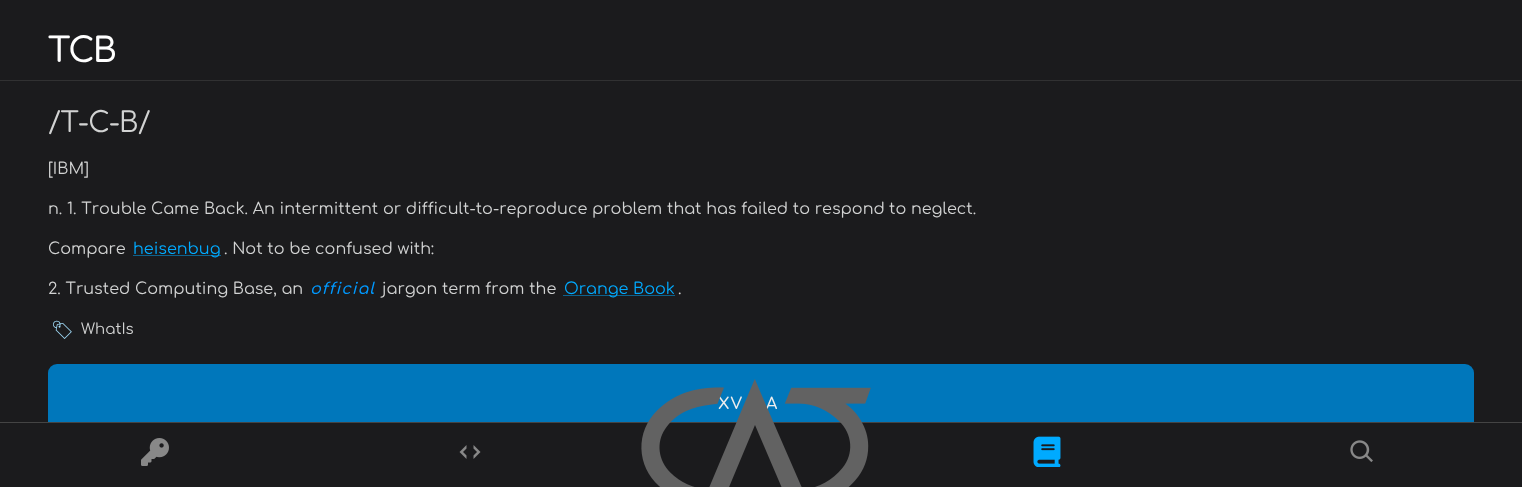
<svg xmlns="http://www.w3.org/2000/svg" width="1522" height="487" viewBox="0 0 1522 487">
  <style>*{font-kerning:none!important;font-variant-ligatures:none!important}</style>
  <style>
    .t1 { font: 600 34px 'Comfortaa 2'; letter-spacing: -2px; fill: #fff; }
    .t2 { font: 28px Comfortaa; letter-spacing: -0.75px; fill: #d2d3d3; }
    .t3 { font: 16px Comfortaa; fill: #d2d3d3; }
    .t4 { font: 16px Comfortaa; fill: #0af; }
    .t5 { font: italic 600 16px Comfortaa; letter-spacing: 1px; fill: #09f; }
    .t6 { font: 18px Noto Emoji; fill: #a5e1ff; }
    .t7 { font: 15px Comfortaa; fill: #d2d3d3; }
    .t8 { font: 600 16px Comfortaa; letter-spacing: 1px; fill: #eee; }
  </style>
  <rect width="100%" height="100%" fill="#1b1b1d"/>
  <rect x="0" y="80" width="1522" height="1" fill="#313132"/>
  <text x="48" y="62" class="t1">TCB</text>
  <text x="48" y="132" class="t2">/T-C-B/</text>
  <text x="48" y="174" class="t3">[IBM]</text>
  <text x="48" y="214" class="t3">n. 1. Trouble Came</text>
  <text x="204" y="214" class="t3">Back. An intermittent or difficult-to-reproduce problem that has failed to respond</text>
  <text x="889" y="214" class="t3">to neglect.</text>
  <text x="48" y="254" class="t3">Compare</text>
  <path d="M133.5 255.5H221" fill="none" stroke="#0af" stroke-dasharray="1 1"/>
  <text x="133" y="254" class="t4">heisenbug</text>
  <text x="224" y="254" class="t3">. Not to be confused with:</text>
  <text x="48" y="294" class="t3">2. Trusted Computing Base, an</text>
  <text x="310" y="294" class="t5">official</text>
  <text x="382" y="294" class="t3">jargon term from the</text>
  <path d="M563.5 295.5H674.5" fill="none" stroke="#0af" stroke-dasharray="1 1"/>
  <text x="564" y="294" class="t4">Orange Book</text>
  <text x="678" y="294" class="t3">.</text>
  <text x="51" y="336" class="t6">🏷</text>
  <text x="81" y="334" class="t7">WhatIs</text>
  <rect x="48" y="364" width="1426" height="108" rx="9" fill="#07b"/>
  <text x="718" y="409" class="t8">XV</text>
  <text x="766" y="409" class="t8">A</text>
  <rect x="48" y="423" width="1426" height="49" fill="#1b1b1d"/>
  <rect x="0" y="422" width="1522" height="1" fill="#444"/>
  <image x="141" y="438" width="28" height="28" href="images/1.png"/>
  <image x="459" y="445" width="22" height="14" href="images/2.png"/>
  <image x="641" y="379" width="230" height="108" href="images/3.png"/>
  <image x="1033" y="436" width="28" height="31" href="images/4.png"/>
  <image x="1350" y="440" width="23" height="22" href="images/5.png"/>
</svg>
